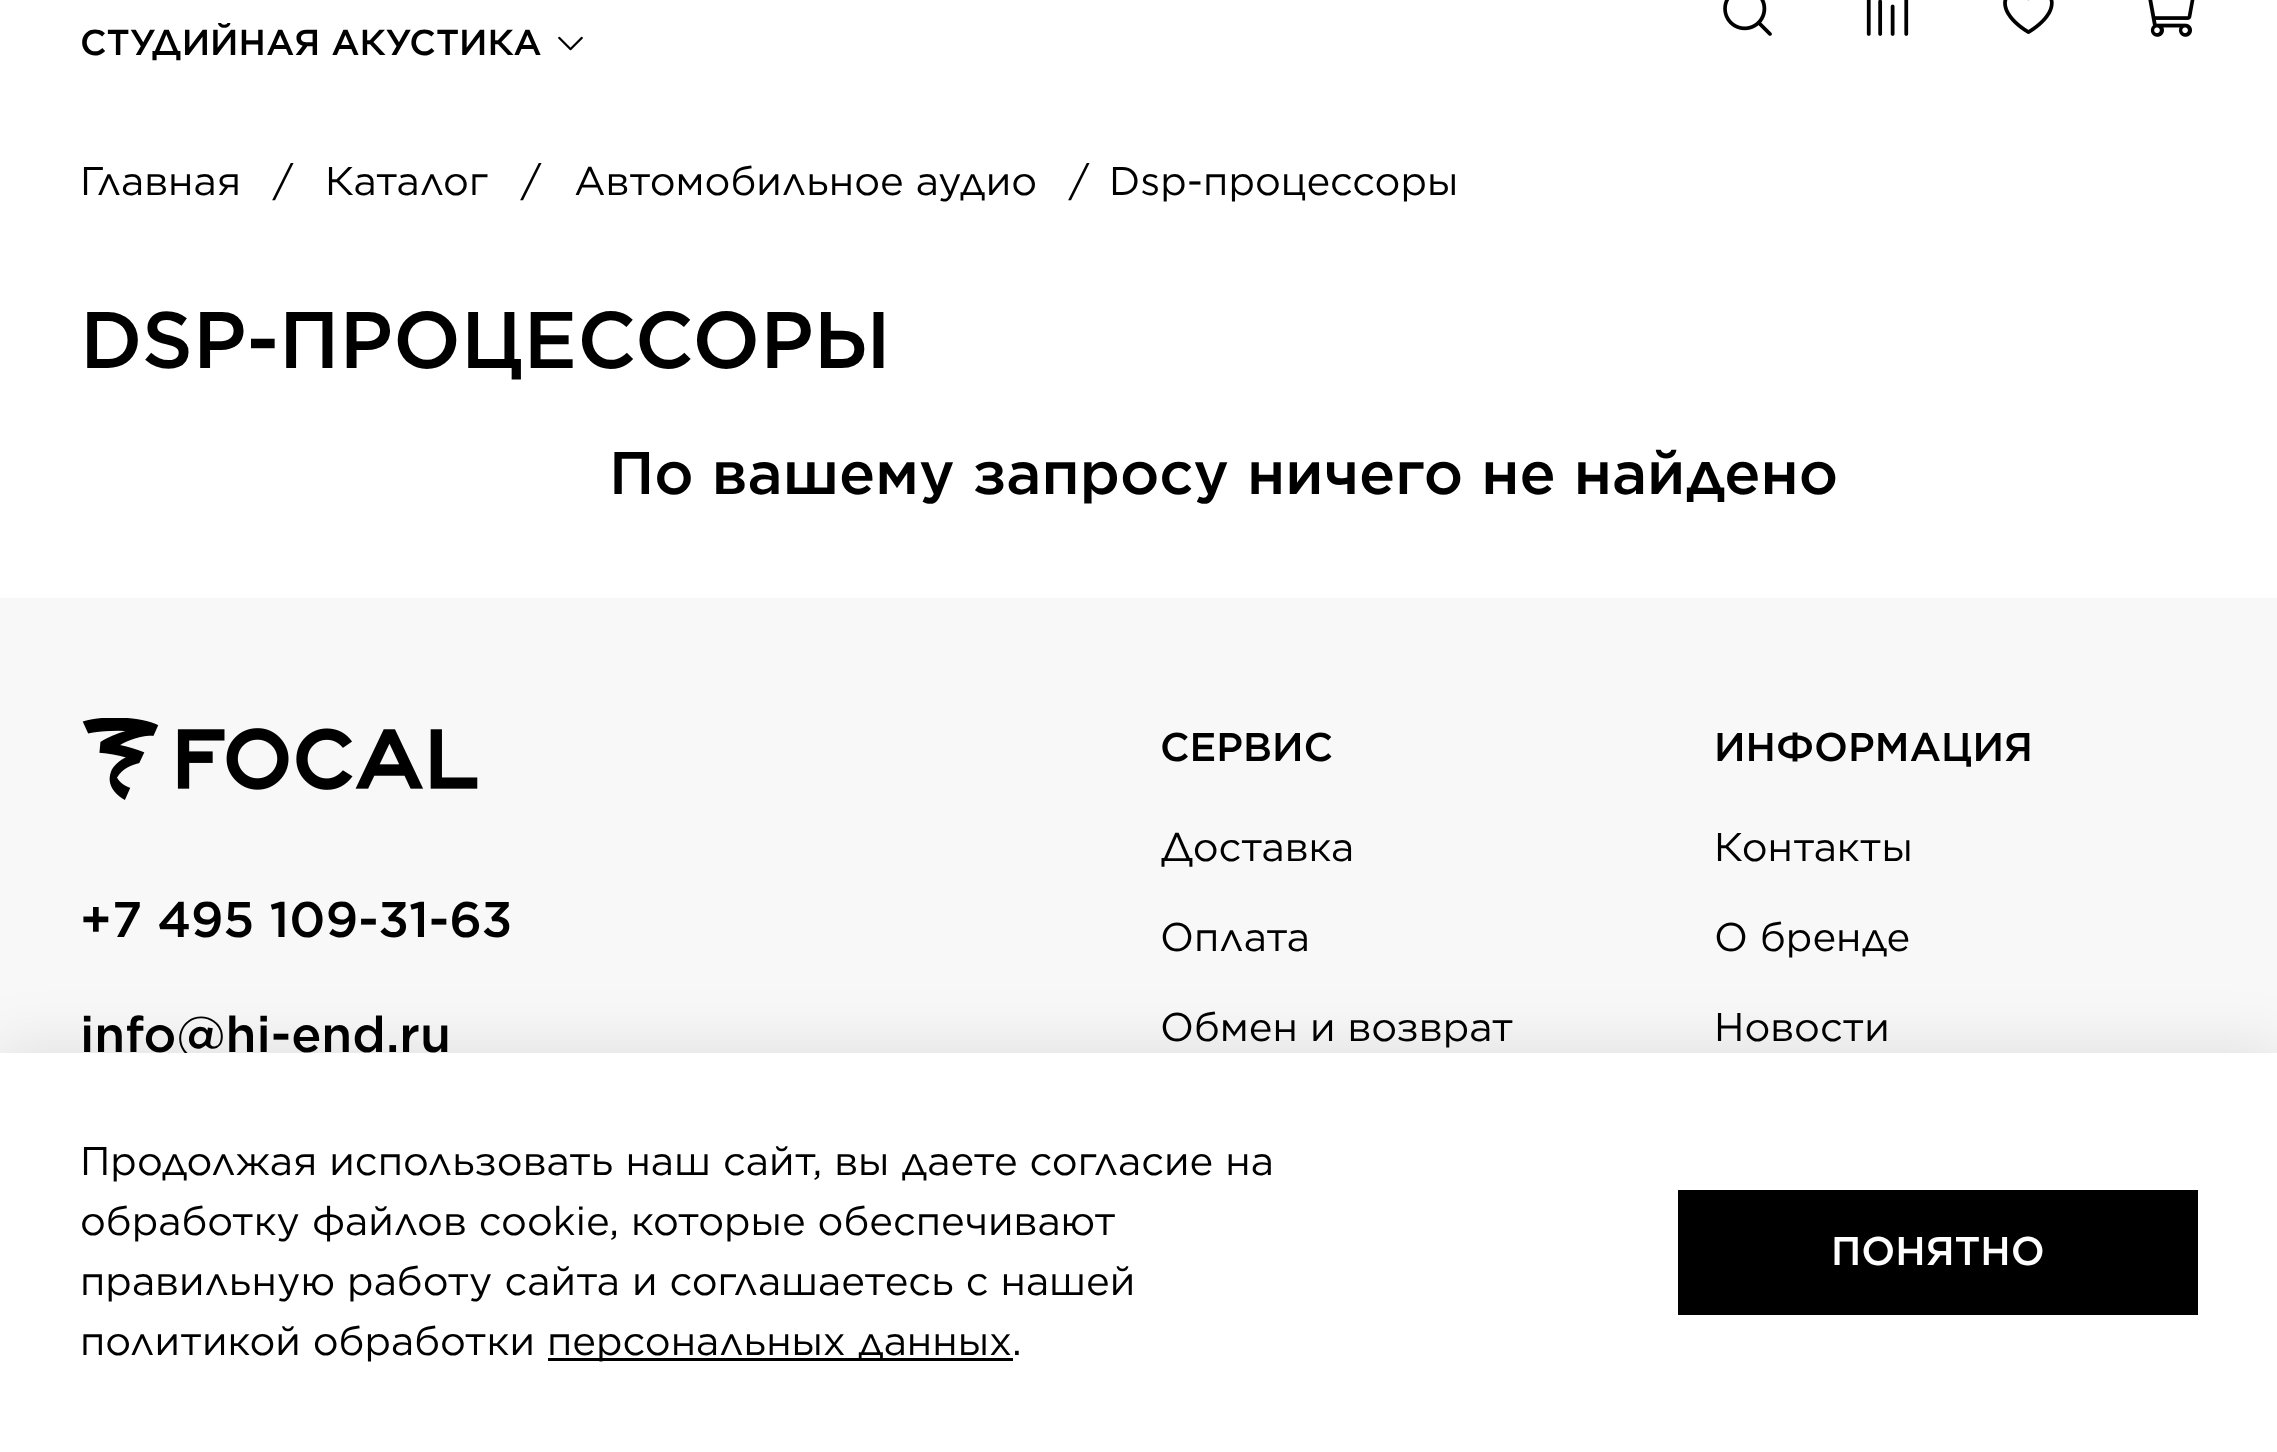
<svg xmlns="http://www.w3.org/2000/svg" width="2277" height="1452" viewBox="0 0 2277 1452">
  <style>
    .t1 { font: 500 36px Gotham; fill: #000; }
    .t2 { font: 40px Gotham; fill: #000; }
    .t3 { font: 500 80px Gotham; fill: #000; }
    .t4 { font: 500 60px Gotham; fill: #000; }
    .t5 { font: 500 50px Gotham; fill: #000; }
    .t6 { font: 500 40px Gotham; fill: #000; }
    .t7 { font: 500 40px Gotham; fill: #fff; }
  </style>
  <rect width="100%" height="100%" fill="#fff"/>
  <text x="80" y="55" class="t1">СТУДИЙНАЯ АКУСТИКА</text>
  <image x="558" y="36" width="25" height="15" href="images/1.png"/>
  <image x="1723" y="0" width="49" height="36" href="images/2.png"/>
  <image x="1866" y="0" width="43" height="36" href="images/3.png"/>
  <image x="2003" y="0" width="51" height="34" href="images/4.png"/>
  <image x="2148" y="0" width="47" height="37" href="images/5.png"/>
  <text x="80" y="195" class="t2">Главная</text>
  <text x="273" y="195" class="t2">/</text>
  <text x="325" y="195" class="t2">Каталог</text>
  <text x="521" y="195" class="t2">/</text>
  <text x="574" y="195" class="t2">Автомобильное аудио</text>
  <text x="1069" y="195" class="t2">/</text>
  <text x="1109" y="195" class="t2">Dsp-процессоры</text>
  <text x="80" y="368" class="t3">DSP-ПРОЦЕССОРЫ</text>
  <text x="609" y="494" class="t4">По вашему запросу ничего не найдено</text>
  <rect x="0" y="598" width="2277" height="455" fill="#f8f8f8"/>
  <image x="82" y="718" width="396" height="82" href="images/6.png"/>
  <text x="80" y="937" class="t5">+7 495 109-31-63</text>
  <text x="80" y="1052" class="t5">info@hi-end.ru</text>
  <text x="1160" y="761" class="t6">СЕРВИС</text>
  <text x="1160" y="861" class="t2">Доставка</text>
  <text x="1160" y="951" class="t2">Оплата</text>
  <text x="1160" y="1041" class="t2">Обмен и возврат</text>
  <text x="1714" y="761" class="t6">ИНФОРМАЦИЯ</text>
  <text x="1714" y="861" class="t2">Контакты</text>
  <text x="1714" y="951" class="t2">О бренде</text>
  <text x="1714" y="1041" class="t2">Новости</text>
  <rect x="-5" y="1045" width="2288" height="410" fill="#00000017" filter="blur(29px)"/>
  <rect x="0" y="1053" width="2277" height="399" fill="#fff"/>
  <text x="80" y="1175" class="t2">Продолжая использовать наш сайт, вы даете согласие на</text>
  <text x="80" y="1235" class="t2">обработку файлов cookie, которые обеспечивают</text>
  <text x="80" y="1295" class="t2">правильную работу сайта и соглашаетесь с нашей</text>
  <text x="80" y="1355" class="t2">политикой обработки</text>
  <rect x="548" y="1358" width="465" height="3" fill="#000"/>
  <text x="547" y="1355" class="t2">персональных данных.</text>
  <rect x="1678" y="1190" width="520" height="125" fill="#000"/>
  <text x="1831" y="1265" class="t7">ПОНЯТНО</text>
</svg>
